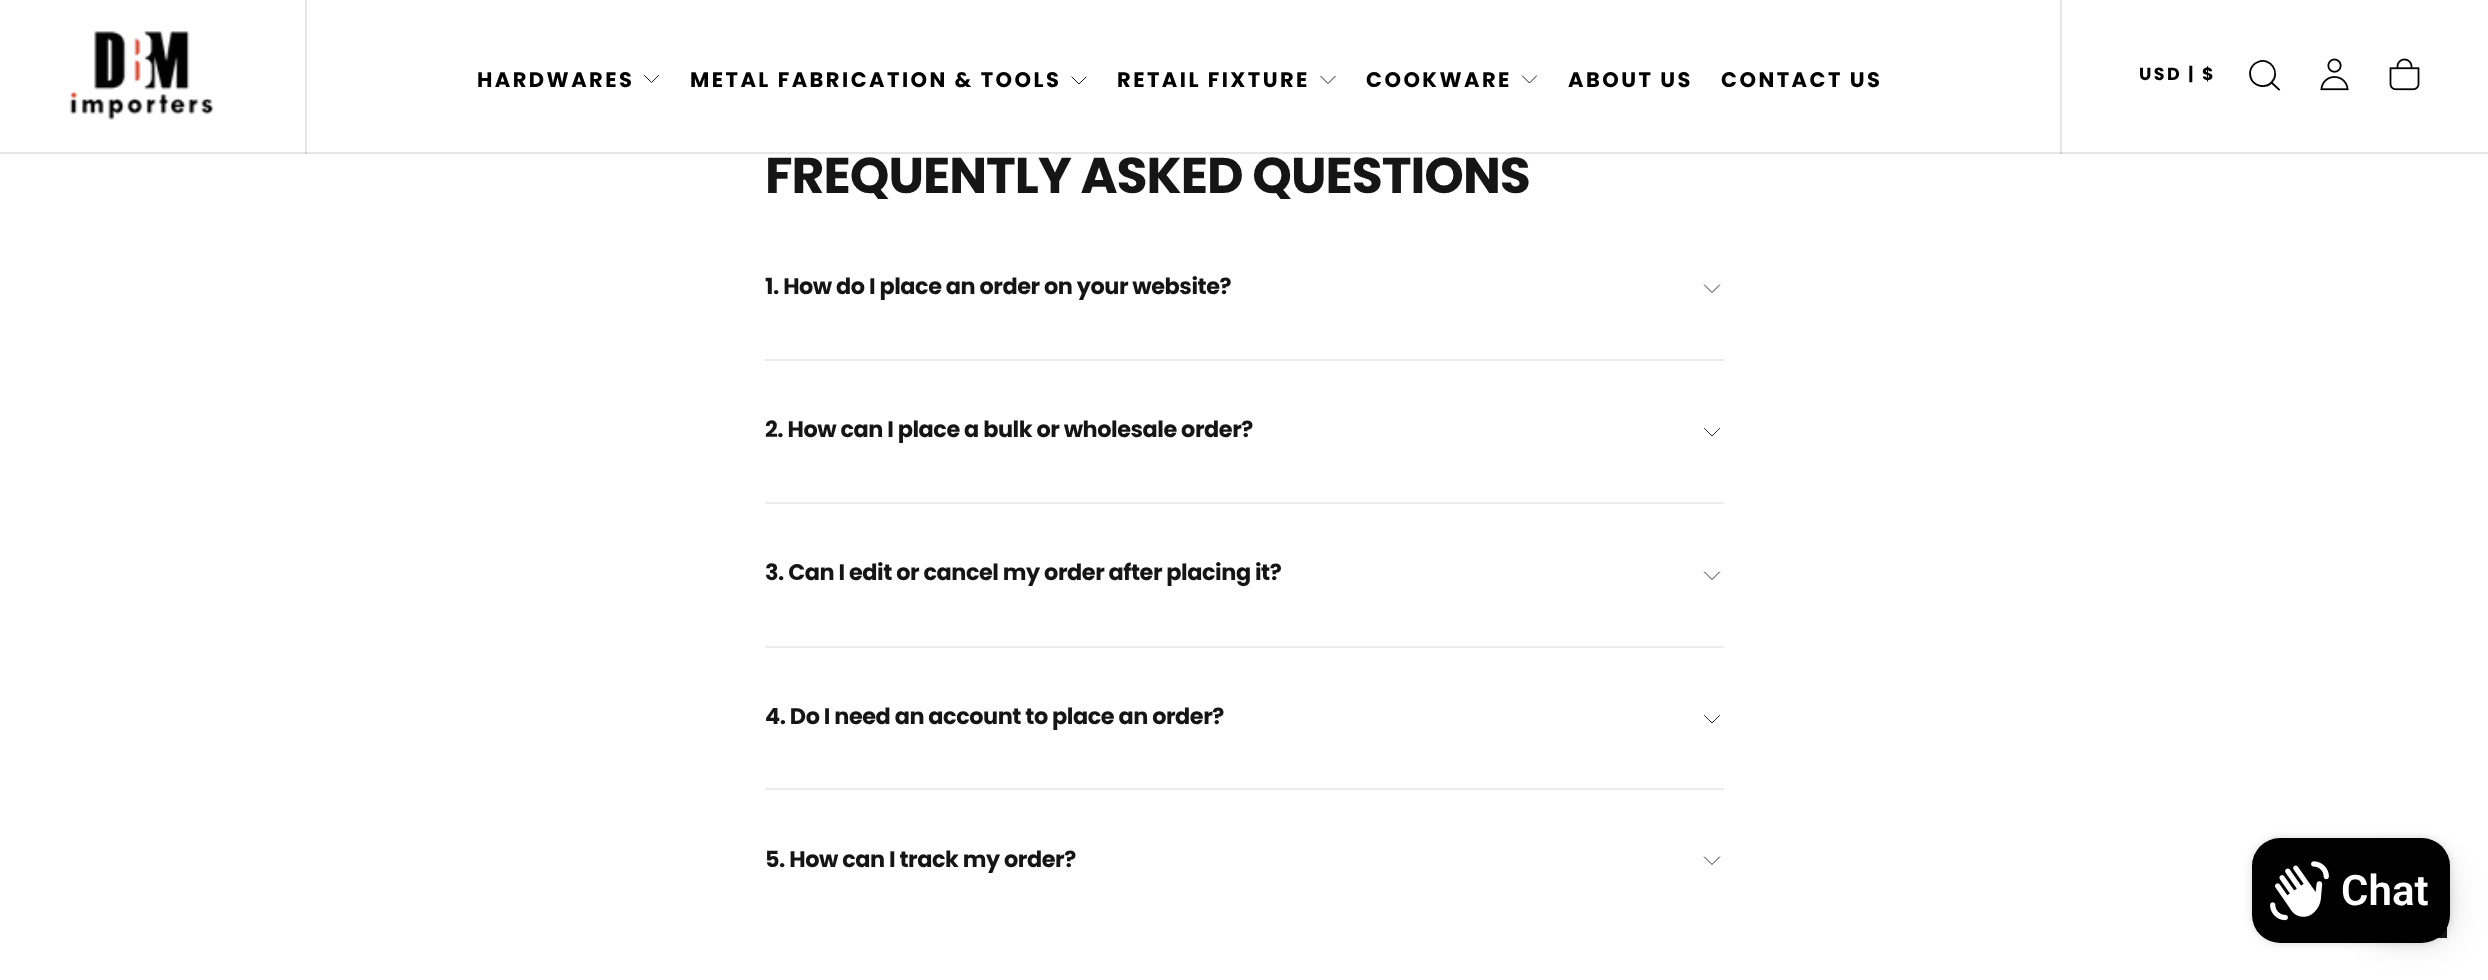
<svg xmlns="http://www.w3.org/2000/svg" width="2488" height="980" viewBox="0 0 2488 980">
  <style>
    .t1 { font: bold 21px Poppins; letter-spacing: 2.45px; fill: #000; }
    .t2 { font: bold 17.5px Poppins; letter-spacing: 2.45px; fill: #000; }
    .t3 { font: bold 50.4px Poppins; letter-spacing: -1px; fill: #151515; }
    .t4 { font: bold 22.4px Poppins; letter-spacing: -0.45px; fill: #151515; }
    .t5 { font: 600 42px Roboto; fill: #fff; }
  </style>
  <rect width="100%" height="100%" fill="#fff"/>
  <rect x="305" y="0" width="2" height="154" fill="#e6e6e6"/>
  <rect x="2060" y="0" width="2" height="154" fill="#e6e6e6"/>
  <rect x="0" y="152" width="2488" height="2" fill="#e6e6e6"/>
  <rect x="305" y="152" width="2" height="2" fill="#cfcfcf"/>
  <rect x="2060" y="152" width="2" height="2" fill="#cfcfcf"/>
  <image x="69" y="31" width="145" height="89" href="images/1.png"/>
  <text x="477" y="87" class="t1">HARDWARES</text>
  <path d="M658.5 75.5L651.5 82.5L644.5 75.5" fill="none" stroke="#000" stroke-width="0.9" stroke-linecap="square"/>
  <text x="690" y="87" class="t1">METAL FABRICATION &amp; TOOLS</text>
  <path d="M1086 77L1079 84L1072 77" fill="none" stroke="#000" stroke-width="0.9" stroke-linecap="square"/>
  <text x="1117" y="87" class="t1">RETAIL FIXTURE</text>
  <path d="M1335 76.5L1328 83.5L1321 76.5" fill="none" stroke="#000" stroke-width="0.9" stroke-linecap="square"/>
  <text x="1366" y="87" class="t1">COOKWARE</text>
  <path d="M1536.5 76L1529.5 83L1522.5 76" fill="none" stroke="#000" stroke-width="0.9" stroke-linecap="square"/>
  <text x="1568" y="87" class="t1">ABOUT US</text>
  <text x="1721" y="87" class="t1">CONTACT US</text>
  <text x="2139" y="80" class="t2">USD | $</text>
  <path d="M2279 89.5L2271.5 82.5M2271.5 82.5C2281 73 2270.5 56.5 2258 62C2255 63 2252.5 65.5 2251 68.5C2249.5 72.5 2250 77 2252 80.5C2256.5 87 2266 88 2271.5 82.5Z" fill="none" stroke="#000" stroke-width="1.8" stroke-linecap="square"/>
  <image x="2320" y="58" width="29" height="33" href="images/2.png"/>
  <image x="2389" y="58" width="31" height="33" href="images/3.png"/>
  <text x="765" y="193" class="t3">FREQUENTLY ASKED QUESTIONS</text>
  <rect x="765" y="359" width="959" height="2" fill="#ebebeb"/>
  <text x="765" y="294" class="t4">1. How do I place an order on your website?</text>
  <path d="M1704.5 285L1712 292.5L1719.5 285" fill="none" stroke="#151515" stroke-width="0.9" stroke-linecap="square"/>
  <rect x="765" y="502" width="959" height="2" fill="#ebebeb"/>
  <text x="765" y="437" class="t4">2. How can I place a bulk or wholesale order?</text>
  <path d="M1704.5 428.5L1712 436L1719.5 428.5" fill="none" stroke="#151515" stroke-width="0.9" stroke-linecap="square"/>
  <rect x="765" y="646" width="959" height="2" fill="#ebebeb"/>
  <text x="765" y="580" class="t4">3. Can I edit or cancel my order after placing it?</text>
  <path d="M1704.5 572L1712 579.5L1719.5 572" fill="none" stroke="#151515" stroke-width="0.9" stroke-linecap="square"/>
  <rect x="765" y="788" width="959" height="2" fill="#ebebeb"/>
  <text x="765" y="724" class="t4">4. Do I need an account to place an order?</text>
  <path d="M1704.5 715.5L1712 723L1719.5 715.5" fill="none" stroke="#151515" stroke-width="0.9" stroke-linecap="square"/>
  <text x="765" y="867" class="t4">5. How can I track my order?</text>
  <path d="M1704.5 857L1712 864.5L1719.5 857" fill="none" stroke="#151515" stroke-width="0.9" stroke-linecap="square"/>
  <rect x="2377" y="868" width="70" height="70" fill="#00000026" filter="blur(17.5px)"/>
  <rect x="2438" y="927" width="9" height="11" fill="#151515"/>
  <rect x="2252" y="838" width="198" height="105" rx="28" fill="#00000026" filter="blur(4.5px)"/>
  <rect x="2252" y="838" width="198" height="105" rx="28" fill="#000"/>
  <image x="2270" y="861" width="59" height="60" href="images/4.png"/>
  <text x="2341" y="905" class="t5">Chat</text>
</svg>
